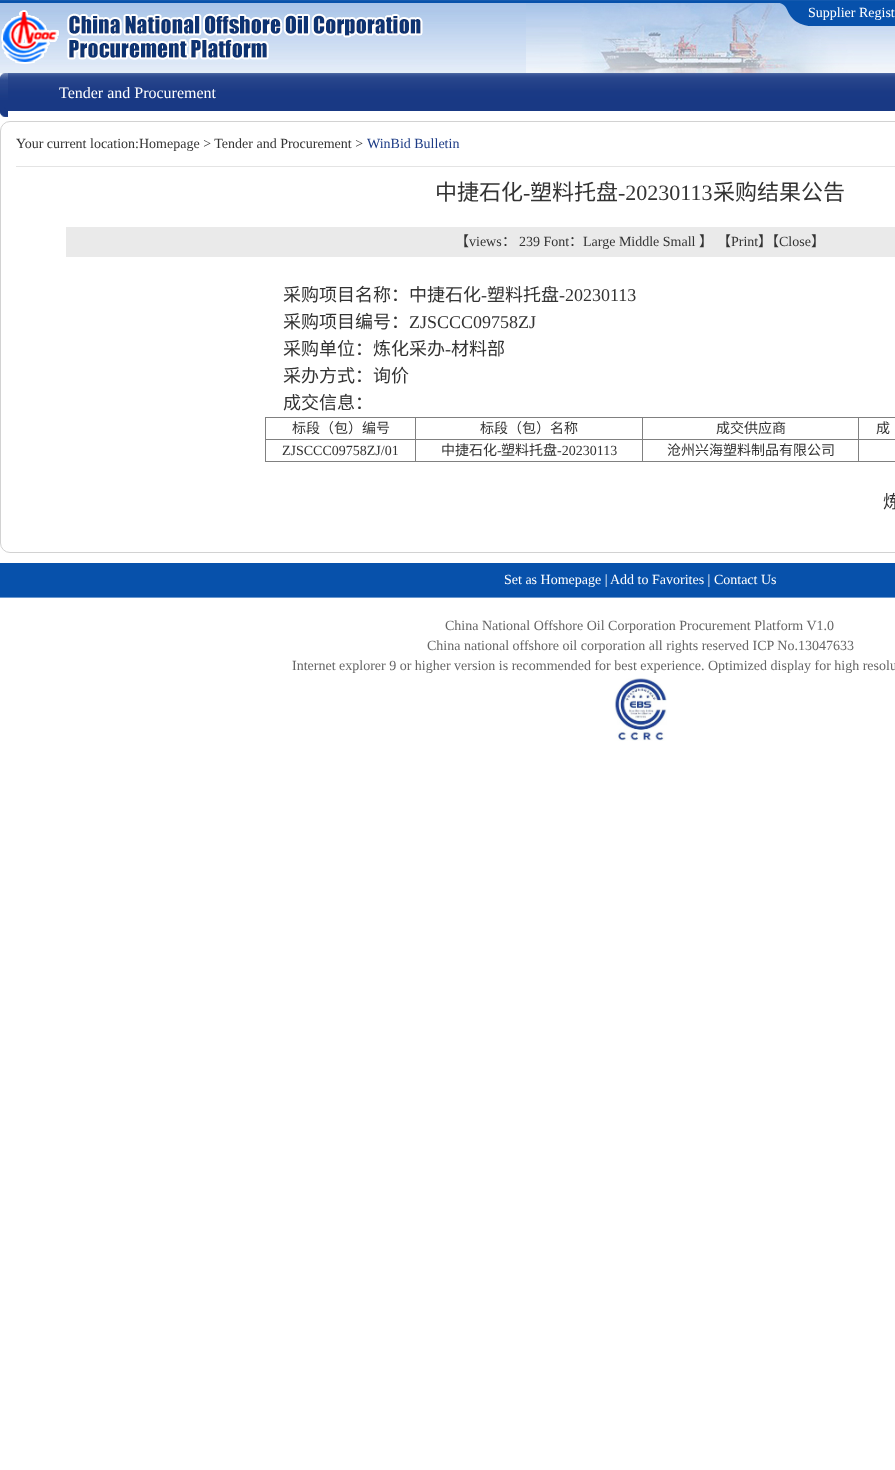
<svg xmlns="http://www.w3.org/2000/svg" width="895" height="1470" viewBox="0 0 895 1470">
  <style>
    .t1 { font: 14px Liberation Serif; fill: #fff; }
    .t2 { font: 16px Liberation Serif; fill: #fff; }
    .t3 { font: 14px Liberation Serif; fill: #333; }
    .t4 { font: 14px Liberation Serif; fill: #1c3b85; }
    .t5 { font: 22px Noto Sans CJK SC; fill: #333; }
    .t6 { font: 22px Liberation Serif; fill: #333; }
    .t7 { font: 14px Noto Sans CJK SC; fill: #333; }
    .t8 { font: 18px Noto Sans CJK SC; fill: #333; }
    .t9 { font: 18px Liberation Serif; fill: #333; }
    .t10 { font: 14px Liberation Serif; fill: #666; }
  </style>
  <rect width="100%" height="100%" fill="#fff"/>
  <image x="0" y="0" width="895" height="73" href="images/1.png"/>
  <image x="526" y="3" width="369" height="70" href="images/2.png"/>
  <image x="1" y="10" width="422" height="54" href="images/3.png"/>
  <image x="780" y="3" width="28" height="23" href="images/4.png"/>
  <rect x="808" y="3" width="87" height="23" fill="#0751ab"/>
  <text x="808" y="17" class="t1">Supplier Regist</text>
  <image x="0" y="73" width="8" height="44" href="images/5.png"/>
  <image x="8" y="73" width="887" height="38" href="images/6.png"/>
  <text x="59" y="98" class="t2">Tender and Procurement</text>
  <rect x="0.5" y="121.5" width="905" height="431" rx="9.5" fill="none" stroke="#d2d2d2"/>
  <rect x="16" y="166" width="879" height="1" fill="#e4e4e4"/>
  <text x="16" y="148" class="t3">Your current location:Homepage &gt; Tender and Procurement &gt;</text>
  <text x="367" y="148" class="t4">WinBid Bulletin</text>
  <text x="435" y="200" class="t5">中捷石化</text>
  <text x="523" y="200" class="t6">-</text>
  <text x="530" y="200" class="t5">塑料托盘</text>
  <text x="618" y="200" class="t6">-20230113</text>
  <text x="713" y="200" class="t5">采购结果公告</text>
  <rect x="66" y="227" width="829" height="30" fill="#eaeaea"/>
  <text x="455" y="246" class="t7">【</text>
  <text x="469" y="246" class="t3">views</text>
  <text x="502" y="246" class="t7">：</text>
  <text x="519" y="246" class="t3">239 Font</text>
  <text x="569" y="246" class="t7">：</text>
  <text x="583" y="246" class="t3">Large Middle Small</text>
  <text x="699" y="246" class="t7">】</text>
  <text x="717" y="246" class="t7">【</text>
  <text x="731" y="246" class="t3">Print</text>
  <text x="758" y="246" class="t7">】【</text>
  <text x="779" y="246" class="t3">Close</text>
  <text x="811" y="246" class="t7">】</text>
  <text x="283" y="301" class="t8">采购项目名称：中捷石化</text>
  <text x="481" y="301" class="t9">-</text>
  <text x="487" y="301" class="t8">塑料托盘</text>
  <text x="559" y="301" class="t9">-20230113</text>
  <text x="283" y="328" class="t8">采购项目编号：</text>
  <text x="409" y="328" class="t9">ZJSCCC09758ZJ</text>
  <text x="283" y="355" class="t8">采购单位：炼化采办</text>
  <text x="445" y="355" class="t9">-</text>
  <text x="451" y="355" class="t8">材料部</text>
  <text x="283" y="382" class="t8">采办方式：询价</text>
  <text x="283" y="409" class="t8">成交信息：</text>
  <rect x="265" y="417" width="630" height="1" fill="#808080"/>
  <rect x="265" y="461" width="630" height="1" fill="#808080"/>
  <rect x="265" y="417" width="1" height="45" fill="#808080"/>
  <text x="292" y="433" class="t7">标段（包）编号</text>
  <rect x="858" y="439" width="37" height="1" fill="#808080"/>
  <rect x="858" y="439" width="1" height="23" fill="#808080"/>
  <rect x="642" y="439" width="217" height="1" fill="#808080"/>
  <rect x="642" y="439" width="1" height="23" fill="#808080"/>
  <rect x="415" y="439" width="228" height="1" fill="#808080"/>
  <rect x="415" y="439" width="1" height="23" fill="#808080"/>
  <rect x="265" y="439" width="151" height="1" fill="#808080"/>
  <rect x="415" y="417" width="1" height="23" fill="#808080"/>
  <text x="480" y="433" class="t7">标段（包）名称</text>
  <rect x="642" y="417" width="1" height="23" fill="#808080"/>
  <text x="716" y="433" class="t7">成交供应商</text>
  <rect x="858" y="417" width="1" height="23" fill="#808080"/>
  <text x="876" y="433" class="t7">成</text>
  <text x="282" y="455" class="t3">ZJSCCC09758ZJ/01</text>
  <text x="441" y="455" class="t7">中捷石化</text>
  <text x="497" y="455" class="t3">-</text>
  <text x="501" y="455" class="t7">塑料托盘</text>
  <text x="557" y="455" class="t3">-20230113</text>
  <text x="667" y="455" class="t7">沧州兴海塑料制品有限公司</text>
  <text x="883" y="508" class="t8">炼</text>
  <rect x="0" y="563" width="895" height="34" fill="#0751ab"/>
  <rect x="0" y="597" width="895" height="1" fill="#6a97cd"/>
  <text x="504" y="584" class="t1">Set as Homepage |</text>
  <text x="610" y="584" class="t1">Add to Favorites | Contact Us</text>
  <text x="445" y="630" class="t10">China National Offshore Oil Corporation Procurement Platform V1.0</text>
  <text x="427" y="650" class="t10">China national offshore oil corporation all rights reserved ICP No.13047633</text>
  <text x="292" y="670" class="t10">Internet explorer 9 or higher version is recommended for best experience. Optimized display for high resolu</text>
  <image x="614" y="678" width="53" height="63" href="images/7.png"/>
</svg>
